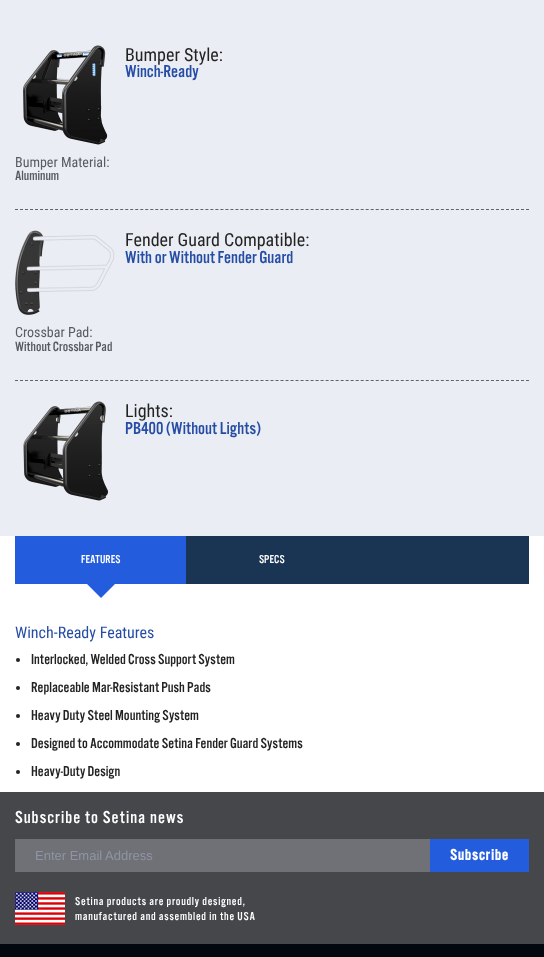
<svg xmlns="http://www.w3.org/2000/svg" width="544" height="957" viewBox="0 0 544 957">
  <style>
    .t1 { font: 18px Roboto Condensed; fill: #232323; }
    .t2 { font: 18px 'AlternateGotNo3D'; fill: #264da6; }
    .t3 { font: 14px Roboto Condensed; fill: #575c61; }
    .t4 { font: 14px 'AlternateGotNo3D'; fill: #575c61; }
    .t5 { font: 12px 'AlternateGotNo3D'; fill: #fff; }
    .t6 { font: 16px Roboto Condensed; fill: #264da6; }
    .t7 { font: 15px 'AlternateGotNo3D'; fill: #232323; }
    .t8 { font: 18px 'AlternateGotNo3D'; letter-spacing: 1px; fill: #fff; }
    .t9 { font: 13px Liberation Sans; fill: #8d95a5; }
    .t10 { font: bold 16px 'AlternateGotNo3D'; letter-spacing: 0.9px; fill: #fff; }
    .t11 { font: 12px 'AlternateGotNo3D'; letter-spacing: 0.7px; fill: #fff; }
  </style>
  <rect width="100%" height="100%" fill="#fff"/>
  <rect x="0" y="0" width="544" height="536" fill="#eaedf3"/>
  <image x="23" y="45" width="85" height="100" href="images/1.png"/>
  <text x="125" y="61" class="t1">Bumper Style:</text>
  <text x="125" y="77" class="t2">Winch-Ready</text>
  <text x="15" y="167" class="t3">Bumper Material:</text>
  <text x="15" y="180" class="t4">Aluminum</text>
  <path d="M15 209.5H529" fill="none" stroke="#5f6469" stroke-dasharray="3 2.01"/>
  <image x="15" y="230" width="100" height="85" href="images/2.png"/>
  <text x="125" y="246" class="t1">Fender Guard Compatible:</text>
  <text x="125" y="263" class="t2">With or Without Fender Guard</text>
  <text x="15" y="337" class="t3">Crossbar Pad:</text>
  <text x="15" y="351" class="t4">Without Crossbar Pad</text>
  <path d="M15 380.5H529" fill="none" stroke="#5f6469" stroke-dasharray="3 2.01"/>
  <image x="23" y="401" width="86" height="100" href="images/3.png"/>
  <text x="125" y="417" class="t1">Lights:</text>
  <text x="125" y="434" class="t2">PB400 (Without Lights)</text>
  <rect x="186" y="536" width="343" height="48" fill="#1a3553"/>
  <rect x="15" y="536" width="171" height="48" fill="#235cdd"/>
  <text x="81" y="563" class="t5">FEATURES</text>
  <path d="M87 584H115L101 598Z" fill="#235cdd"/>
  <text x="259" y="563" class="t5">SPECS</text>
  <text x="15" y="638" class="t6">Winch-Ready Features</text>
  <circle cx="18" cy="660" r="2" fill="#232323"/>
  <text x="31" y="664" class="t7">Interlocked, Welded Cross Support System</text>
  <circle cx="18" cy="688" r="2" fill="#232323"/>
  <text x="31" y="692" class="t7">Replaceable Mar-Resistant Push Pads</text>
  <circle cx="18" cy="716" r="2" fill="#232323"/>
  <text x="31" y="720" class="t7">Heavy Duty Steel Mounting System</text>
  <circle cx="18" cy="744" r="2" fill="#232323"/>
  <text x="31" y="748" class="t7">Designed to Accommodate Setina Fender Guard Systems</text>
  <circle cx="18" cy="772" r="2" fill="#232323"/>
  <text x="31" y="776" class="t7">Heavy-Duty Design</text>
  <rect x="0" y="792" width="544" height="152" fill="#46474a"/>
  <text x="15" y="823" class="t8">Subscribe to Setina news</text>
  <rect x="15" y="839" width="415" height="33" fill="#707176"/>
  <text x="35" y="860" class="t9">Enter Email Address</text>
  <rect x="430" y="839" width="99" height="33" fill="#235cdd"/>
  <text x="450" y="860" class="t10">Subscribe</text>
  <image x="15" y="892" width="50" height="33" href="images/4.png"/>
  <text x="75" y="905" class="t11">Setina products are proudly designed,</text>
  <text x="75" y="920" class="t11">manufactured and assembled in the USA</text>
  <rect x="0" y="944" width="544" height="13" fill="#020710"/>
</svg>
